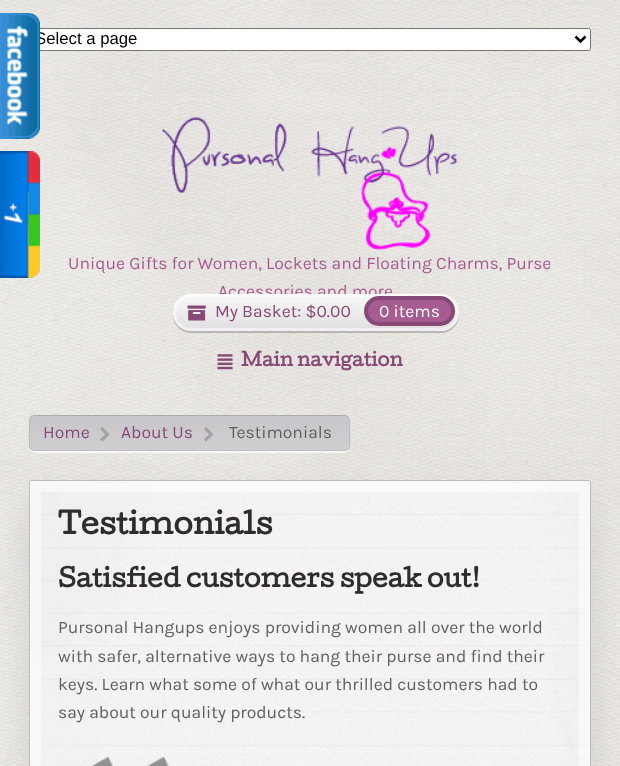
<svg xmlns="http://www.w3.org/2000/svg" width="620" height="766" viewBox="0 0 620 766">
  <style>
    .t1 { font: 16.75px Liberation Sans; fill: #000; }
    .t2 { font: 17.5px Karla; fill: #a75c91; }
    .t3 { font: 17.5px Karla; fill: #874975; }
    .t4 { font: 17.5px Karla; fill: #fff; }
    .t5 { font: bold 17.5px Cutive; fill: #874975; }
    .t6 { font: 17.5px Karla; fill: #606060; }
    .t7 { font: bold 28.25px Cutive; fill: #2d2d2d; }
    .t8 { font: bold 24.25px Cutive; fill: #2d2d2d; }
  </style>
  <defs>
    <linearGradient id="g1" gradientUnits="userSpaceOnUse" x1="316" y1="294" x2="316" y2="331"><stop offset="0" stop-color="#f9f9f9"/><stop offset="1" stop-color="#e0dee1"/></linearGradient>
    <linearGradient id="g2" gradientUnits="userSpaceOnUse" x1="189" y1="416" x2="189" y2="450"><stop offset="0" stop-color="#c9c6cb"/><stop offset="1" stop-color="#d1ced2"/></linearGradient>
  </defs>
  <rect width="100%" height="100%" fill="#fff"/>
  <image x="0" y="0" width="620" height="766" href="images/1.png"/>
  <image x="0" y="0" width="620" height="766" href="images/2.png"/>
  <rect x="29.5" y="28.5" width="561" height="22" rx="2" fill="#fff" stroke="#767676"/>
  <text x="35" y="44" class="t1">Select a page</text>
  <image x="0" y="13" width="40" height="126" href="images/3.png"/>
  <path d="M575.5 36.5L580.5 41.5L585.5 36.5" fill="none" stroke="#000" stroke-width="2.5"/>
  <image x="162" y="117" width="296" height="133" href="images/4.png"/>
  <text x="68" y="269" class="t2">Unique Gifts for Women, Lockets and Floating Charms, Purse</text>
  <text x="218" y="297" class="t2">Accessories and more</text>
  <rect x="173" y="295" width="286" height="38" rx="18" fill="#00000033" filter="blur(0.5px)"/>
  <rect x="173" y="294" width="286" height="37" rx="18" fill="url(#g1)"/>
  <rect x="174.5" y="295.5" width="283" height="34" rx="16.5" fill="none" stroke="#ffffff80" stroke-width="3"/>
  <image x="187" y="305" width="19" height="16" href="images/5.png"/>
  <text x="215" y="317" class="t3">My Basket: $0.00</text>
  <rect x="366" y="298" width="87" height="26" rx="13" fill="#a75c91" stroke="#874975" stroke-width="4"/>
  <text x="379" y="317" class="t4">0 items</text>
  <image x="217" y="354" width="16" height="16" href="images/6.png"/>
  <text x="241" y="366" class="t5">Main navigation</text>
  <path d="M29 447C29 450 32 453 35 453H344C347 453 350 450 350 447V446C350 449 347 451 344 451H34C32 451 30 450 29 447Z" fill="#ffffffbf"/>
  <rect x="30" y="416" width="319" height="34" rx="5" fill="url(#g2)"/>
  <path d="M31 417C32 416 33 415.5 34.5 415.5H344.5C345.5 415.5 347 416 348 417" fill="none" stroke="#adabae" stroke-width="1.2"/>
  <path d="M348 417C349 418 349.5 419.5 349.5 420.5V445.5C349.5 447 349 448 348 449C347 450 345.5 450.5 344.5 450.5H34.5C33 450.5 32 450 31 449C30 448 29.5 447 29.5 445.5V420.5C29.5 419.5 30 418 31 417" fill="none" stroke="#bebcbf" stroke-width="1.2"/>
  <text x="43" y="438" class="t3">Home</text>
  <image x="100" y="427" width="10" height="15" href="images/7.png"/>
  <text x="121" y="438" class="t3">About Us</text>
  <image x="204" y="427" width="10" height="15" href="images/8.png"/>
  <text x="229" y="438" class="t6">Testimonials</text>
  <rect x="29" y="498" width="562" height="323" rx="2.5" fill="#0000001a" filter="blur(17.5px)"/>
  <path d="M31 481H589C589 481 590 482 590 482V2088C590 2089 589 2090 589 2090H31C31 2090 30 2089 30 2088V482C30 482 31 481 31 481Z" fill="#f1eff2"/>
  <image x="30" y="481" width="560" height="285" href="images/9.png"/>
  <path d="M35.5 486.5H584.5V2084.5H35.5Z" fill="none" stroke="#ffffff8c" stroke-width="10.8"/>
  <rect x="30" y="480" width="560" height="1" fill="#bebcbf"/>
  <rect x="590" y="481" width="1" height="285" fill="#bebcbf"/>
  <rect x="29" y="481" width="1" height="285" fill="#bebcbf"/>
  <text x="58" y="534" class="t7">Testimonials</text>
  <text x="58" y="587" class="t8">Satisfied customers speak out!</text>
  <text x="58" y="633" class="t6">Pursonal Hangups enjoys providing women all over the world</text>
  <text x="58" y="662" class="t6">with safer, alternative ways to hang their purse and find their</text>
  <text x="58" y="690" class="t6">keys. Learn what some of what our thrilled customers had to</text>
  <text x="58" y="718" class="t6">say about our quality products.</text>
  <image x="91" y="756" width="78" height="10" href="images/10.png"/>
  <image x="0" y="151" width="40" height="127" href="images/11.png"/>
</svg>
